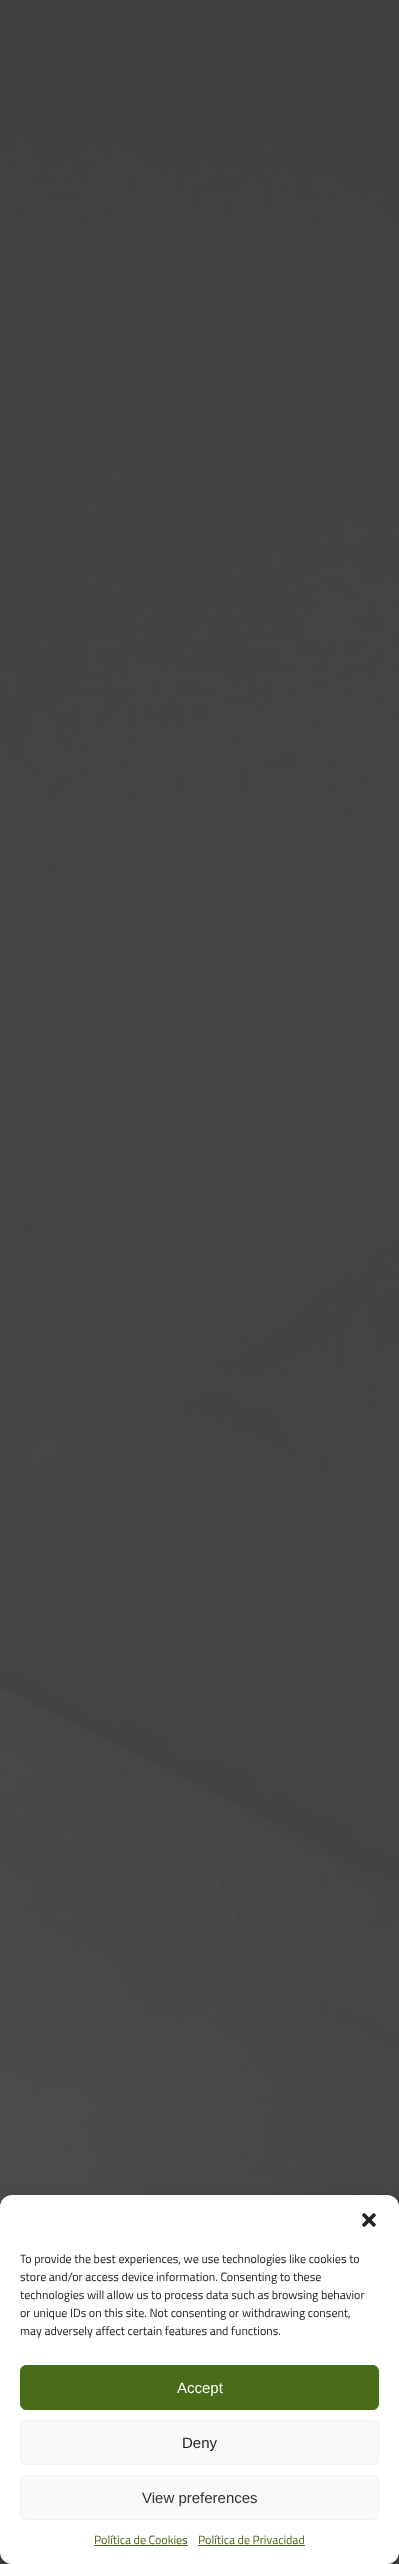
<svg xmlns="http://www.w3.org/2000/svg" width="399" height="2564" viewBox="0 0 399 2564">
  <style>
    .t1 { font: 12px Titillium Web; fill: #222; }
    .t2 { font: 15px Liberation Sans; fill: #fff; }
    .t3 { font: 15px Liberation Sans; fill: #222; }
    .t4 { font: 15px Liberation Sans; fill: #333; }
    .t5 { font: 12px Titillium Web; fill: #496a16; }
  </style>
  <rect width="100%" height="100%" fill="#2e2e2e"/>
  <image x="0" y="0" width="399" height="2564" href="images/1.png"/>
  <rect x="0" y="2201" width="399" height="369" rx="12" fill="#0000003b" filter="blur(3px)"/>
  <rect x="0" y="2205" width="399" height="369" rx="12" fill="#00000030" filter="blur(10px)"/>
  <rect x="0" y="2195" width="399" height="369" rx="12" fill="#fff"/>
  <image x="362" y="2213" width="14" height="14" href="images/2.png"/>
  <text x="20" y="2263" class="t1">To provide the best experiences, we use technologies like cookies to</text>
  <text x="20" y="2281" class="t1">store and/or access device information. Consenting to these</text>
  <text x="20" y="2299" class="t1">technologies will allow us to process data such as browsing behavior</text>
  <text x="20" y="2317" class="t1">or unique IDs on this site. Not consenting or withdrawing consent,</text>
  <text x="20" y="2335" class="t1">may adversely affect certain features and functions.</text>
  <rect x="20.5" y="2365.5" width="358" height="44" rx="5.5" fill="#496a16" stroke="#496a16"/>
  <text x="177" y="2393" class="t2">Accept</text>
  <rect x="20.5" y="2420.5" width="358" height="44" rx="5.5" fill="#f9f9f9" stroke="#f2f2f2"/>
  <text x="182" y="2448" class="t3">Deny</text>
  <rect x="20.5" y="2475.5" width="358" height="44" rx="5.5" fill="#f9f9f9" stroke="#f2f2f2"/>
  <text x="142" y="2503" class="t4">View preferences</text>
  <text x="94" y="2544" class="t5">Política de Cookies</text>
  <rect x="94" y="2545" width="94" height="1" fill="#496a16"/>
  <text x="198" y="2544" class="t5">Política de Privacidad</text>
  <rect x="198" y="2545" width="107" height="1" fill="#496a16"/>
</svg>
